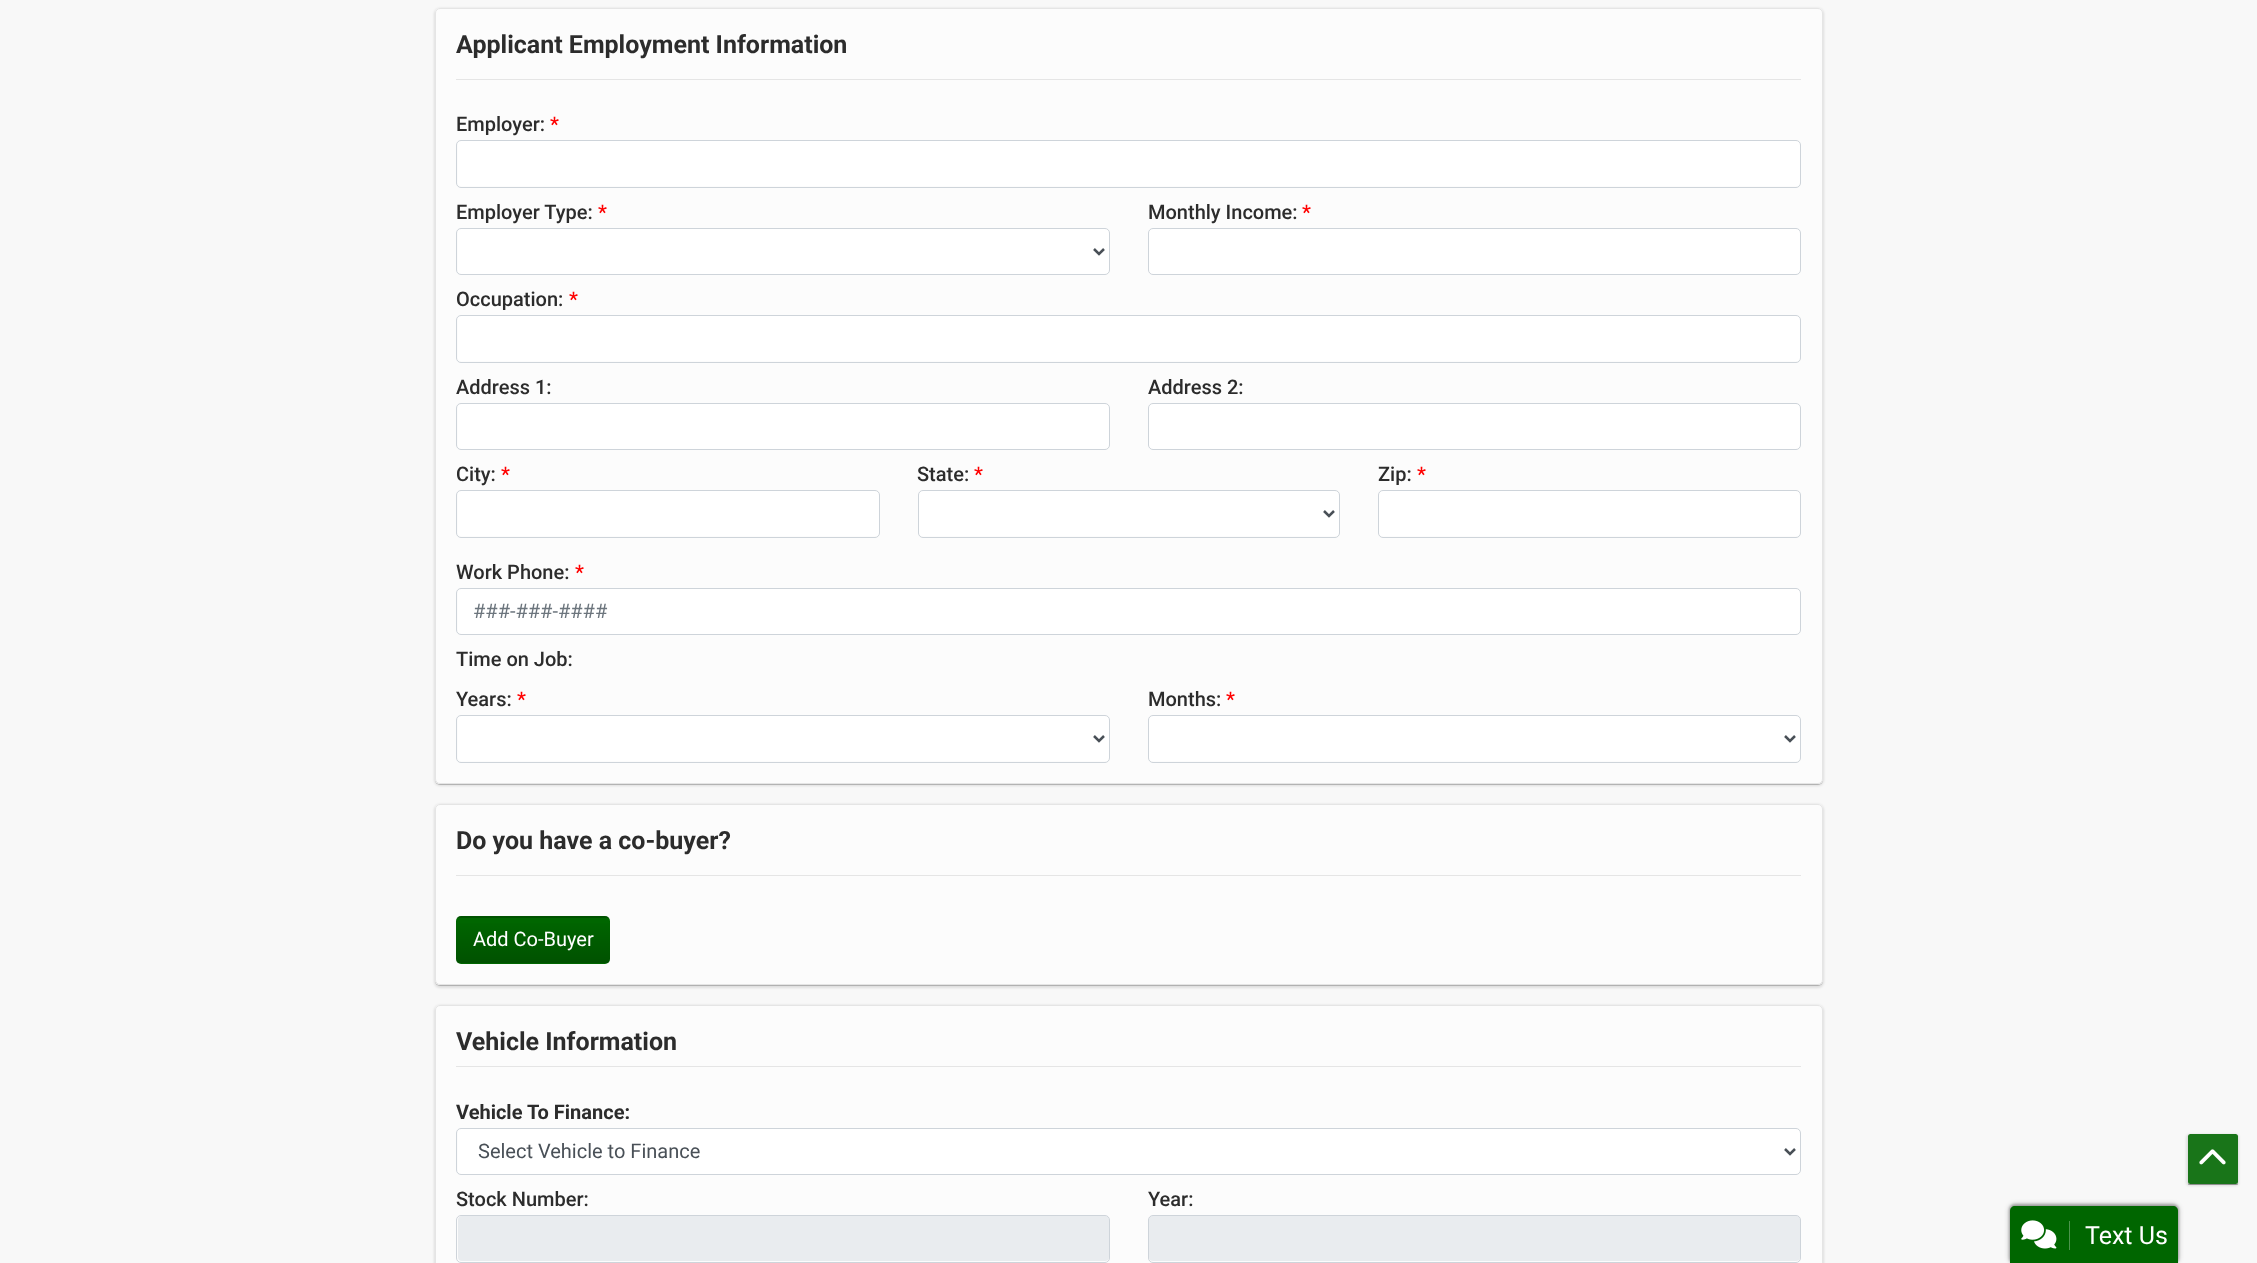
<svg xmlns="http://www.w3.org/2000/svg" width="2257" height="1263" viewBox="0 0 2257 1263">
  <style>
    .t1 { font: bold 25px Roboto; fill: #2c2c2c; }
    .t2 { font: 500 20px Roboto; fill: #2c2c2c; }
    .t3 { font: 500 20px Roboto; fill: #f00; }
    .t4 { font: 20px Roboto; fill: #6c757d; }
    .t5 { font: 20px Roboto; fill: #fff; }
    .t6 { font: bold 20px Roboto; fill: #2c2c2c; }
    .t7 { font: 20px Roboto; fill: #495057; }
    .t8 { font: 25px Roboto; fill: #fff; }
  </style>
  <defs>
    <clipPath id="clip1"><path d="M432 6H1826V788H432ZM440 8H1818C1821 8 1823 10 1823 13V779C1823 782 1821 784 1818 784H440C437 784 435 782 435 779V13C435 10 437 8 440 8Z" clip-rule="evenodd"/></clipPath>
    <clipPath id="clip2"><path d="M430 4H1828V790H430ZM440 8H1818C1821 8 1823 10 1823 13V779C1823 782 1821 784 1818 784H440C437 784 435 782 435 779V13C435 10 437 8 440 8Z" clip-rule="evenodd"/></clipPath>
    <clipPath id="clip3"><path d="M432 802H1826V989H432ZM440 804H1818C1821 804 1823 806 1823 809V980C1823 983 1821 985 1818 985H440C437 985 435 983 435 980V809C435 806 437 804 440 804Z" clip-rule="evenodd"/></clipPath>
    <clipPath id="clip4"><path d="M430 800H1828V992H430ZM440 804H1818C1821 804 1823 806 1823 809V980C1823 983 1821 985 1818 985H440C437 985 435 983 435 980V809C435 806 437 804 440 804Z" clip-rule="evenodd"/></clipPath>
    <clipPath id="clip5"><rect x="456" y="916" width="154" height="48" rx="5"/></clipPath>
    <linearGradient id="g1" gradientUnits="userSpaceOnUse" x1="533" y1="873" x2="533" y2="918"><stop offset="0" stop-color="#000" stop-opacity="0"/><stop offset="1" stop-color="#000" stop-opacity="0.2"/></linearGradient>
    <linearGradient id="g2" gradientUnits="userSpaceOnUse" x1="533" y1="918" x2="533" y2="963"><stop offset="0" stop-color="#000" stop-opacity="0"/><stop offset="1" stop-color="#000" stop-opacity="0.2"/></linearGradient>
    <clipPath id="clip6"><path d="M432 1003H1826V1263H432ZM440 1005H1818C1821 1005 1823 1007 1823 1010V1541C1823 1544 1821 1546 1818 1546H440C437 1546 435 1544 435 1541V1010C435 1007 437 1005 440 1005Z" clip-rule="evenodd"/></clipPath>
    <clipPath id="clip7"><path d="M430 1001H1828V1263H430ZM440 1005H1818C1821 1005 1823 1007 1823 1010V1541C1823 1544 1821 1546 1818 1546H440C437 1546 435 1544 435 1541V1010C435 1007 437 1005 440 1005Z" clip-rule="evenodd"/></clipPath>
    <clipPath id="clip8"><path d="M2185 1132H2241V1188H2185ZM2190.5 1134H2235.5C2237 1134 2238 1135 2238 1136.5V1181.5C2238 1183 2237 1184 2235.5 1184H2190.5C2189 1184 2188 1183 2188 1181.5V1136.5C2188 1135 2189 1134 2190.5 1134Z" clip-rule="evenodd"/></clipPath>
    <clipPath id="clip9"><path d="M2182 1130H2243V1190H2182ZM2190.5 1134H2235.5C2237 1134 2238 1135 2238 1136.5V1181.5C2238 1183 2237 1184 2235.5 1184H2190.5C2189 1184 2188 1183 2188 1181.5V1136.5C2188 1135 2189 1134 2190.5 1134Z" clip-rule="evenodd"/></clipPath>
    <clipPath id="clip10"><path d="M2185 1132H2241V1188H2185ZM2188 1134H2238V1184H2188Z" clip-rule="evenodd"/></clipPath>
  </defs>
  <rect width="100%" height="100%" fill="#f8f8f8"/>
  <g clip-path="url(#clip1)">
    <rect x="435" y="9" width="1388" height="776" rx="5" fill="#00000033" filter="blur(0.5px)"/>
  </g>
  <g clip-path="url(#clip2)">
    <rect x="434" y="8" width="1390" height="778" rx="6" fill="#0000001a" filter="blur(1px)"/>
  </g>
  <rect x="435.5" y="8.5" width="1387" height="775" rx="4.5" fill="#ffffff99" stroke="#e5e5e5"/>
  <text x="456" y="53" class="t1">Applicant Employment Information</text>
  <rect x="456" y="79" width="1345" height="1" fill="#e5e5e5"/>
  <text x="456" y="131" class="t2">Employer:</text>
  <text x="550" y="131" class="t3">*</text>
  <rect x="458" y="141" width="1342" height="45" rx="4" fill="#fff"/>
  <rect x="456.5" y="140.5" width="1344" height="47" rx="4.5" fill="none" stroke="#ced4da"/>
  <text x="456" y="219" class="t2">Employer Type:</text>
  <text x="598" y="219" class="t3">*</text>
  <rect x="458" y="229" width="651" height="45" rx="4" fill="#fff"/>
  <rect x="456.5" y="228.5" width="653" height="46" rx="4.5" fill="none" stroke="#ced4da"/>
  <path d="M1094 249L1099 254L1104 249" fill="none" stroke="#495057" stroke-width="2.5"/>
  <text x="1148" y="219" class="t2">Monthly Income:</text>
  <text x="1302" y="219" class="t3">*</text>
  <rect x="1148.5" y="228.5" width="652" height="46" rx="4.5" fill="#fff" stroke="#ced4da"/>
  <text x="456" y="306" class="t2">Occupation:</text>
  <text x="569" y="306" class="t3">*</text>
  <rect x="458" y="316" width="1342" height="45" rx="4" fill="#fff"/>
  <rect x="456.5" y="315.5" width="1344" height="47" rx="4.5" fill="none" stroke="#ced4da"/>
  <text x="456" y="394" class="t2">Address 1:</text>
  <rect x="458" y="404" width="651" height="45" rx="4" fill="#fff"/>
  <rect x="456.5" y="403.5" width="653" height="46" rx="4.5" fill="none" stroke="#ced4da"/>
  <text x="1148" y="394" class="t2">Address 2:</text>
  <rect x="1148.5" y="403.5" width="652" height="46" rx="4.5" fill="#fff" stroke="#ced4da"/>
  <text x="456" y="481" class="t2">City:</text>
  <text x="501" y="481" class="t3">*</text>
  <rect x="458" y="491" width="421" height="45" rx="4" fill="#fff"/>
  <rect x="456.5" y="490.5" width="423" height="47" rx="4.5" fill="none" stroke="#ced4da"/>
  <text x="917" y="481" class="t2">State:</text>
  <text x="974" y="481" class="t3">*</text>
  <rect x="919" y="491" width="420" height="45" rx="4" fill="#fff"/>
  <rect x="918.5" y="490.5" width="421" height="47" rx="4.5" fill="none" stroke="#ced4da"/>
  <path d="M1324 511L1329 516L1334 511" fill="none" stroke="#495057" stroke-width="2.5"/>
  <text x="1378" y="481" class="t2">Zip:</text>
  <text x="1417" y="481" class="t3">*</text>
  <rect x="1379" y="491" width="421" height="45" rx="4" fill="#fff"/>
  <rect x="1378.5" y="490.5" width="422" height="47" rx="4.5" fill="none" stroke="#ced4da"/>
  <text x="456" y="579" class="t2">Work Phone:</text>
  <text x="575" y="579" class="t3">*</text>
  <rect x="458" y="589" width="1342" height="45" rx="4" fill="#fff"/>
  <rect x="456.5" y="588.5" width="1344" height="46" rx="4.5" fill="none" stroke="#ced4da"/>
  <text x="473" y="618" class="t4">###-###-####</text>
  <text x="456" y="666" class="t2">Time on Job:</text>
  <text x="456" y="706" class="t2">Years:</text>
  <text x="517" y="706" class="t3">*</text>
  <rect x="458" y="716" width="651" height="45" rx="4" fill="#fff"/>
  <rect x="456.5" y="715.5" width="653" height="47" rx="4.5" fill="none" stroke="#ced4da"/>
  <path d="M1094 736L1099 741L1104 736" fill="none" stroke="#495057" stroke-width="2.5"/>
  <text x="1148" y="706" class="t2">Months:</text>
  <text x="1226" y="706" class="t3">*</text>
  <rect x="1149" y="716" width="651" height="45" rx="4" fill="#fff"/>
  <rect x="1148.5" y="715.5" width="652" height="47" rx="4.5" fill="none" stroke="#ced4da"/>
  <path d="M1785 736L1790 741L1795 736" fill="none" stroke="#495057" stroke-width="2.5"/>
  <g clip-path="url(#clip3)">
    <rect x="435" y="805" width="1388" height="181" rx="5" fill="#00000033" filter="blur(0.5px)"/>
  </g>
  <g clip-path="url(#clip4)">
    <rect x="434" y="804" width="1390" height="184" rx="6" fill="#0000001a" filter="blur(1px)"/>
  </g>
  <rect x="435.5" y="804.5" width="1387" height="180" rx="4.5" fill="#ffffff99" stroke="#e5e5e5"/>
  <text x="456" y="849" class="t1">Do you have a co-buyer?</text>
  <rect x="456" y="875" width="1345" height="1" fill="#e5e5e5"/>
  <rect x="456" y="916" width="154" height="48" rx="5" fill="#060"/>
  <g clip-path="url(#clip5)">
    <rect x="456" y="916" width="154" height="2" fill="url(#g1)"/>
    <rect x="456" y="923" width="154" height="40" fill="url(#g2)"/>
  </g>
  <text x="473" y="946" class="t5">Add Co-Buyer</text>
  <g clip-path="url(#clip6)">
    <rect x="435" y="1006" width="1388" height="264" rx="5" fill="#00000033" filter="blur(0.5px)"/>
  </g>
  <g clip-path="url(#clip7)">
    <rect x="434" y="1005" width="1390" height="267" rx="6" fill="#0000001a" filter="blur(1px)"/>
  </g>
  <rect x="435.5" y="1005.5" width="1387" height="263" rx="4.5" fill="#ffffff99" stroke="#e5e5e5"/>
  <text x="456" y="1050" class="t1">Vehicle Information</text>
  <rect x="456" y="1066" width="1345" height="1" fill="#e5e5e5"/>
  <text x="456" y="1119" class="t6">Vehicle To Finance:</text>
  <rect x="458" y="1129" width="1342" height="45" rx="4" fill="#fff"/>
  <rect x="456.5" y="1128.5" width="1344" height="46" rx="4.5" fill="none" stroke="#ced4da"/>
  <path d="M1785 1149L1790 1154L1795 1149" fill="none" stroke="#495057" stroke-width="2.5"/>
  <text x="478" y="1158" class="t7">Select Vehicle to Finance</text>
  <text x="456" y="1206" class="t2">Stock Number:</text>
  <rect x="458" y="1216" width="651" height="45" rx="4" fill="#e9ecef"/>
  <rect x="456.5" y="1215.5" width="653" height="47" rx="4.5" fill="none" stroke="#ced4da"/>
  <text x="1148" y="1206" class="t2">Year:</text>
  <rect x="1149" y="1216" width="651" height="45" rx="4" fill="#e9ecef"/>
  <rect x="1148.5" y="1215.5" width="652" height="47" rx="4.5" fill="none" stroke="#ced4da"/>
  <g clip-path="url(#clip8)">
    <rect x="2188" y="1135" width="50" height="50" rx="2.5" fill="#00000033" filter="blur(0.5px)"/>
  </g>
  <g clip-path="url(#clip9)">
    <rect x="2186" y="1134" width="53" height="52" rx="4" fill="#0000001a" filter="blur(1px)"/>
  </g>
  <rect x="2188" y="1134" width="50" height="50" rx="2.5" fill="#006600e6"/>
  <g clip-path="url(#clip10)">
    <rect x="2188" y="1135" width="50" height="50" fill="#00000033" filter="blur(0.5px)"/>
  </g>
  <image x="2199" y="1149" width="27" height="16" href="images/1.png"/>
  <rect x="2009" y="1204" width="170" height="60" rx="6" fill="#00000040" filter="blur(1px)"/>
  <rect x="2008" y="1203" width="172" height="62" rx="8" fill="#00000026" filter="blur(2px)"/>
  <path d="M2015 1206H2173C2176 1206 2178 1208 2178 1211V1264H2010V1211C2010 1208 2012 1206 2015 1206Z" fill="#060"/>
  <rect x="2069" y="1221" width="1" height="29" fill="#4d944d"/>
  <image x="2021" y="1220" width="36" height="29" href="images/2.png"/>
  <text x="2085" y="1244" class="t8">Text Us</text>
</svg>
